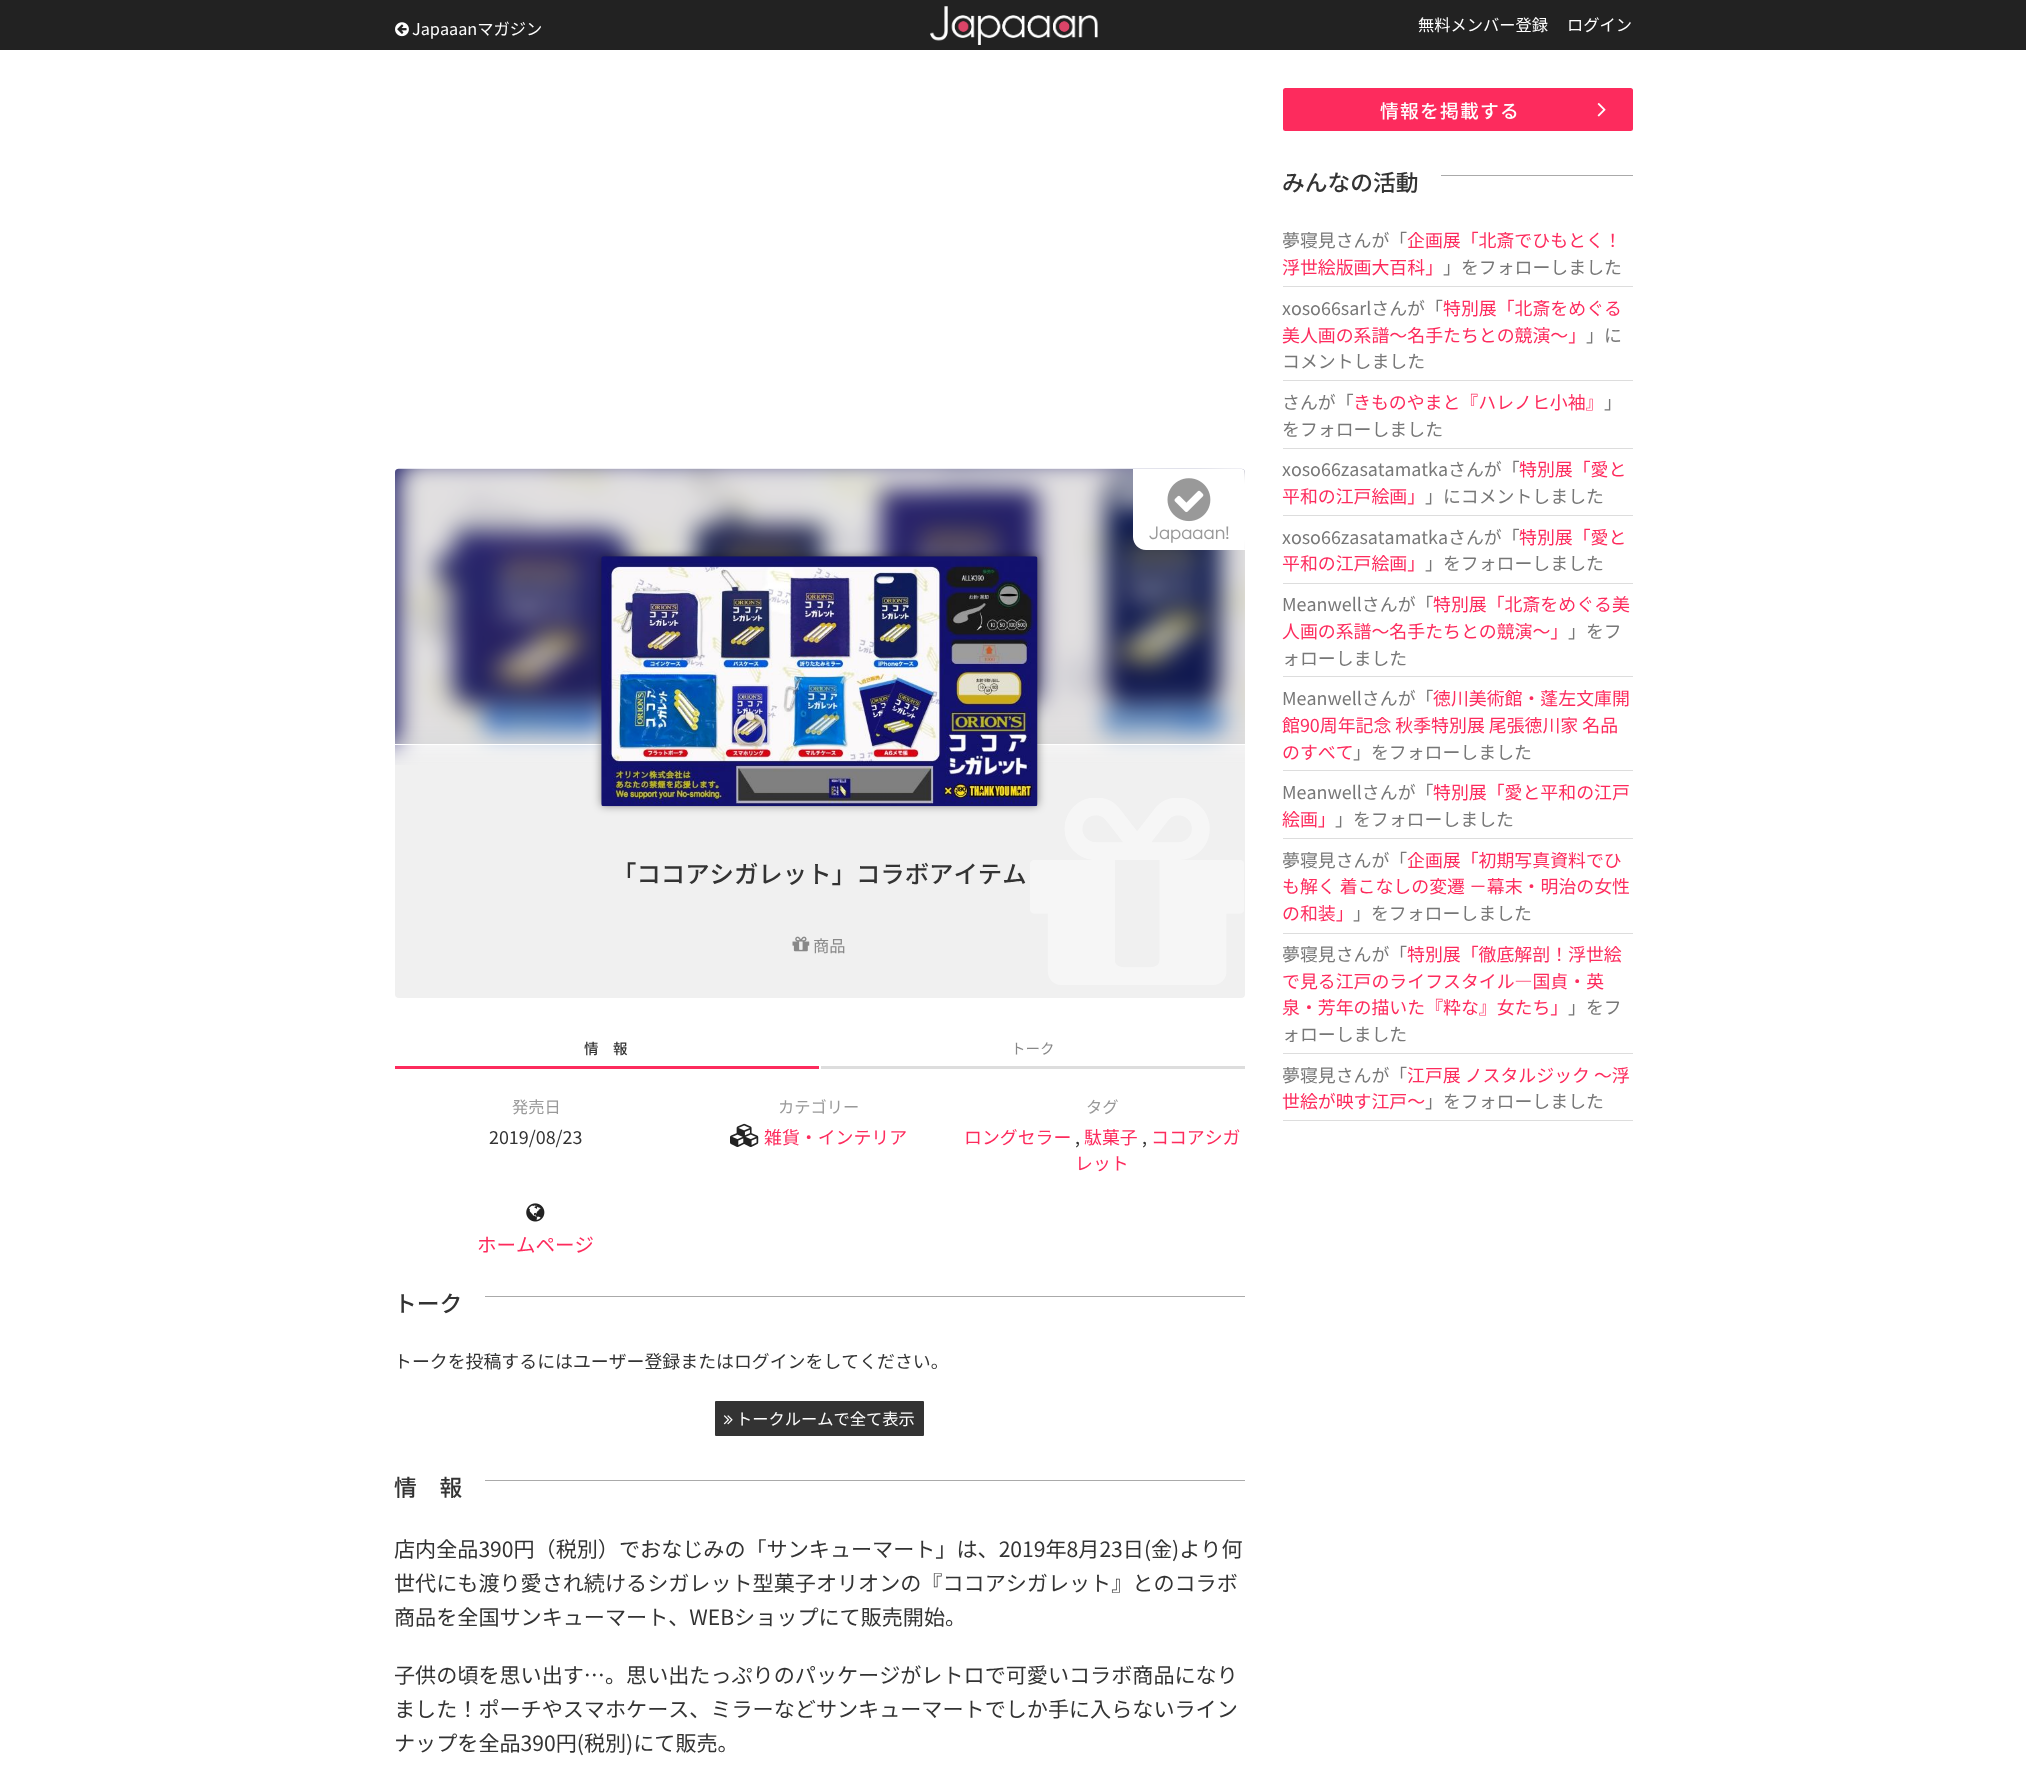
<svg xmlns="http://www.w3.org/2000/svg" width="2026" height="1768" viewBox="0 0 2026 1768">
  <style>*{font-kerning:none!important;font-variant-ligatures:none!important}</style>
  <style>
    .t1 { font: 16.25px Noto Sans JP; fill: #fff; }
    .t2 { font: 18.75px Questrial; fill: #999; }
    .t3 { font: 500 24.4px Noto Sans JP; fill: #333; }
    .t4 { font: 16.25px Noto Sans JP; fill: #888; }
    .t5 { font: 500 14.5px Noto Sans JP; fill: #333; }
    .t6 { font: 14.5px Noto Sans JP; fill: #888; }
    .t7 { font: 16.25px Noto Sans JP; fill: #999; }
    .t8 { font: 17.9px Noto Sans JP; fill: #333; }
    .t9 { font: 17.9px Noto Sans JP; fill: #fd2b5d; }
    .t10 { font: 19.5px Noto Sans JP; fill: #fd2b5d; }
    .t11 { font: 500 22.75px Noto Sans JP; fill: #333; }
    .t12 { font: 21.1px Noto Sans JP; fill: #333; }
    .t13 { font: 500 18.75px Noto Sans JP; letter-spacing: 1.25px; fill: #fff; }
    .t14 { font: 17.9px Noto Sans JP; fill: #777; }
  </style>
  <rect width="100%" height="100%" fill="#fff"/>
  <rect x="0" y="0" width="2026" height="50" fill="#222"/>
  <image x="395" y="22" width="14" height="15" href="images/1.png"/>
  <text x="412" y="35" class="t1">Japaaanマガジン</text>
  <image x="930" y="6" width="168" height="39" href="images/2.png"/>
  <text x="1418" y="31" class="t1">無料メンバー登録</text>
  <text x="1567" y="31" class="t1">ログイン</text>
  <rect x="395" y="469" width="850" height="529" rx="4" fill="#f0f0f0"/>
  <rect x="1243" y="996" width="1" height="1" fill="#eee"/>
  <image x="395" y="468" width="850" height="297" href="images/3.png"/>
  <path d="M399 469C397 469 395 470 395 472V745H1245V472C1245 470 1243 469 1241 469Z" fill="#0000001a"/>
  <rect x="395" y="744" width="850" height="1" fill="#fff"/>
  <path d="M1133 469V537C1133 544 1139 550 1146 550H1245C1245 541 1246 473 1244 470L1242 469Z" fill="#fff"/>
  <image x="1167" y="478" width="44" height="44" href="images/4.png"/>
  <text x="1149" y="539" class="t2">Japaaan!</text>
  <image x="1030" y="798" width="214" height="187" href="images/6.png"/>
  <rect x="601" y="556" width="437" height="250" rx="2.5" fill="#00000066" filter="blur(4.5px)"/>
  <image x="601" y="556" width="437" height="251" href="images/5.png"/>
  <text x="612" y="883" class="t3">「ココアシガレット」コラボアイテム</text>
  <image x="792" y="936" width="18" height="16" href="images/7.png"/>
  <text x="813" y="952" class="t4">商品</text>
  <rect x="395" y="1066" width="424" height="3" fill="#fd2b5d"/>
  <text x="584" y="1054" class="t5">情　報</text>
  <rect x="821" y="1066" width="424" height="3" fill="#ddd"/>
  <text x="1011" y="1054" class="t6">トーク</text>
  <text x="512" y="1113" class="t7">発売日</text>
  <text x="489" y="1144" class="t8">2019/08/23</text>
  <text x="778" y="1113" class="t7">カテゴリー</text>
  <image x="730" y="1123" width="29" height="24" href="images/8.png"/>
  <text x="764" y="1144" class="t9">雑貨・インテリア</text>
  <text x="1086" y="1113" class="t7">タグ</text>
  <text x="964" y="1144" class="t9">ロングセラー</text>
  <text x="1075" y="1144" class="t8">,</text>
  <text x="1084" y="1144" class="t9">駄菓子</text>
  <text x="1142" y="1144" class="t8">,</text>
  <text x="1151" y="1144" class="t9">ココアシガ</text>
  <text x="1075" y="1170" class="t9">レット</text>
  <image x="526" y="1203" width="19" height="19" href="images/9.png"/>
  <text x="477" y="1252" class="t10">ホームページ</text>
  <text x="394" y="1312" class="t11">トーク</text>
  <rect x="485" y="1296" width="760" height="1" fill="#aaa"/>
  <text x="394" y="1368" class="t8">トークを投稿するにはユーザー登録またはログインをしてください。</text>
  <rect x="715" y="1401" width="209" height="35" rx="1" fill="#333"/>
  <image x="723" y="1415" width="10" height="10" href="images/10.png"/>
  <text x="736" y="1425" class="t1">トークルームで全て表示</text>
  <text x="394" y="1496" class="t11">情　報</text>
  <rect x="485" y="1480" width="760" height="1" fill="#aaa"/>
  <text x="394" y="1557" class="t12">店内全品390円（税別）でおなじみの「サンキューマート」は、2019年8月23日(金)より何</text>
  <text x="394" y="1591" class="t12">世代にも渡り愛され続けるシガレット型菓子オリオンの『ココアシガレット』とのコラボ</text>
  <text x="394" y="1625" class="t12">商品を全国サンキューマート、WEBショップにて販売開始。</text>
  <text x="394" y="1683" class="t12">子供の頃を思い出す…。思い出たっぷりのパッケージがレトロで可愛いコラボ商品になり</text>
  <text x="394" y="1717" class="t12">ました！ポーチやスマホケース、ミラーなどサンキューマートでしか手に入らないライン</text>
  <text x="394" y="1751" class="t12">ナップを全品390円(税別)にて販売。</text>
  <rect x="1283" y="88" width="350" height="43" rx="2.5" fill="#fd2b5d"/>
  <text x="1380" y="118" class="t13">情報を掲載する</text>
  <image x="1597" y="103" width="9" height="14" href="images/11.png"/>
  <text x="1282" y="191" class="t11">みんなの活動</text>
  <rect x="1441" y="175" width="192" height="1" fill="#aaa"/>
  <rect x="1283" y="286" width="350" height="1" fill="#ddd"/>
  <text x="1282" y="247" class="t14">夢寝見さんが「</text>
  <text x="1407" y="247" class="t9">企画展「北斎でひもとく！</text>
  <text x="1282" y="274" class="t9">浮世絵版画大百科」</text>
  <text x="1443" y="274" class="t14">」をフォローしました</text>
  <rect x="1283" y="380" width="350" height="1" fill="#ddd"/>
  <text x="1282" y="315" class="t14">xoso66sarlさんが「</text>
  <text x="1443" y="315" class="t9">特別展「北斎をめぐる</text>
  <text x="1282" y="342" class="t9">美人画の系譜～名手たちとの競演～」</text>
  <text x="1586" y="342" class="t14">」に</text>
  <text x="1282" y="368" class="t14">コメントしました</text>
  <rect x="1283" y="448" width="350" height="1" fill="#ddd"/>
  <text x="1282" y="409" class="t14">さんが「</text>
  <text x="1353" y="409" class="t9">きものやまと『ハレノヒ小袖』</text>
  <text x="1604" y="409" class="t14">」</text>
  <text x="1282" y="436" class="t14">をフォローしました</text>
  <rect x="1283" y="515" width="350" height="1" fill="#ddd"/>
  <text x="1282" y="476" class="t14">xoso66zasatamatkaさんが「</text>
  <text x="1519" y="476" class="t9">特別展「愛と</text>
  <text x="1282" y="503" class="t9">平和の江戸絵画」</text>
  <text x="1425" y="503" class="t14">」にコメントしました</text>
  <rect x="1283" y="583" width="350" height="1" fill="#ddd"/>
  <text x="1282" y="544" class="t14">xoso66zasatamatkaさんが「</text>
  <text x="1519" y="544" class="t9">特別展「愛と</text>
  <text x="1282" y="570" class="t9">平和の江戸絵画」</text>
  <text x="1425" y="570" class="t14">」をフォローしました</text>
  <rect x="1283" y="676" width="350" height="1" fill="#ddd"/>
  <text x="1282" y="611" class="t14">Meanwellさんが「</text>
  <text x="1433" y="611" class="t9">特別展「北斎をめぐる美</text>
  <text x="1282" y="638" class="t9">人画の系譜～名手たちとの競演～」</text>
  <text x="1568" y="638" class="t14">」をフ</text>
  <text x="1282" y="665" class="t14">ォローしました</text>
  <rect x="1283" y="770" width="350" height="1" fill="#ddd"/>
  <text x="1282" y="705" class="t14">Meanwellさんが「</text>
  <text x="1433" y="705" class="t9">徳川美術館・蓬左文庫開</text>
  <text x="1282" y="732" class="t9">館90周年記念 秋季特別展 尾張徳川家 名品</text>
  <text x="1282" y="759" class="t9">のすべて</text>
  <text x="1353" y="759" class="t14">」をフォローしました</text>
  <rect x="1283" y="838" width="350" height="1" fill="#ddd"/>
  <text x="1282" y="799" class="t14">Meanwellさんが「</text>
  <text x="1433" y="799" class="t9">特別展「愛と平和の江戸</text>
  <text x="1282" y="826" class="t9">絵画」</text>
  <text x="1335" y="826" class="t14">」をフォローしました</text>
  <rect x="1283" y="933" width="350" height="1" fill="#ddd"/>
  <text x="1282" y="867" class="t14">夢寝見さんが「</text>
  <text x="1407" y="867" class="t9">企画展「初期写真資料でひ</text>
  <text x="1282" y="893" class="t9">も解く 着こなしの変遷 －幕末・明治の女性</text>
  <text x="1282" y="920" class="t9">の和装」</text>
  <text x="1353" y="920" class="t14">」をフォローしました</text>
  <rect x="1283" y="1053" width="350" height="1" fill="#ddd"/>
  <text x="1282" y="961" class="t14">夢寝見さんが「</text>
  <text x="1407" y="961" class="t9">特別展「徹底解剖！浮世絵</text>
  <text x="1282" y="988" class="t9">で見る江戸のライフスタイル―国貞・英</text>
  <text x="1282" y="1014" class="t9">泉・芳年の描いた『粋な』女たち」</text>
  <text x="1568" y="1014" class="t14">」をフ</text>
  <text x="1282" y="1041" class="t14">ォローしました</text>
  <rect x="1283" y="1120" width="350" height="1" fill="#ddd"/>
  <text x="1282" y="1082" class="t14">夢寝見さんが「</text>
  <text x="1407" y="1082" class="t9">江戸展 ノスタルジック ～浮</text>
  <text x="1282" y="1108" class="t9">世絵が映す江戸～</text>
  <text x="1425" y="1108" class="t14">」をフォローしました</text>
</svg>
